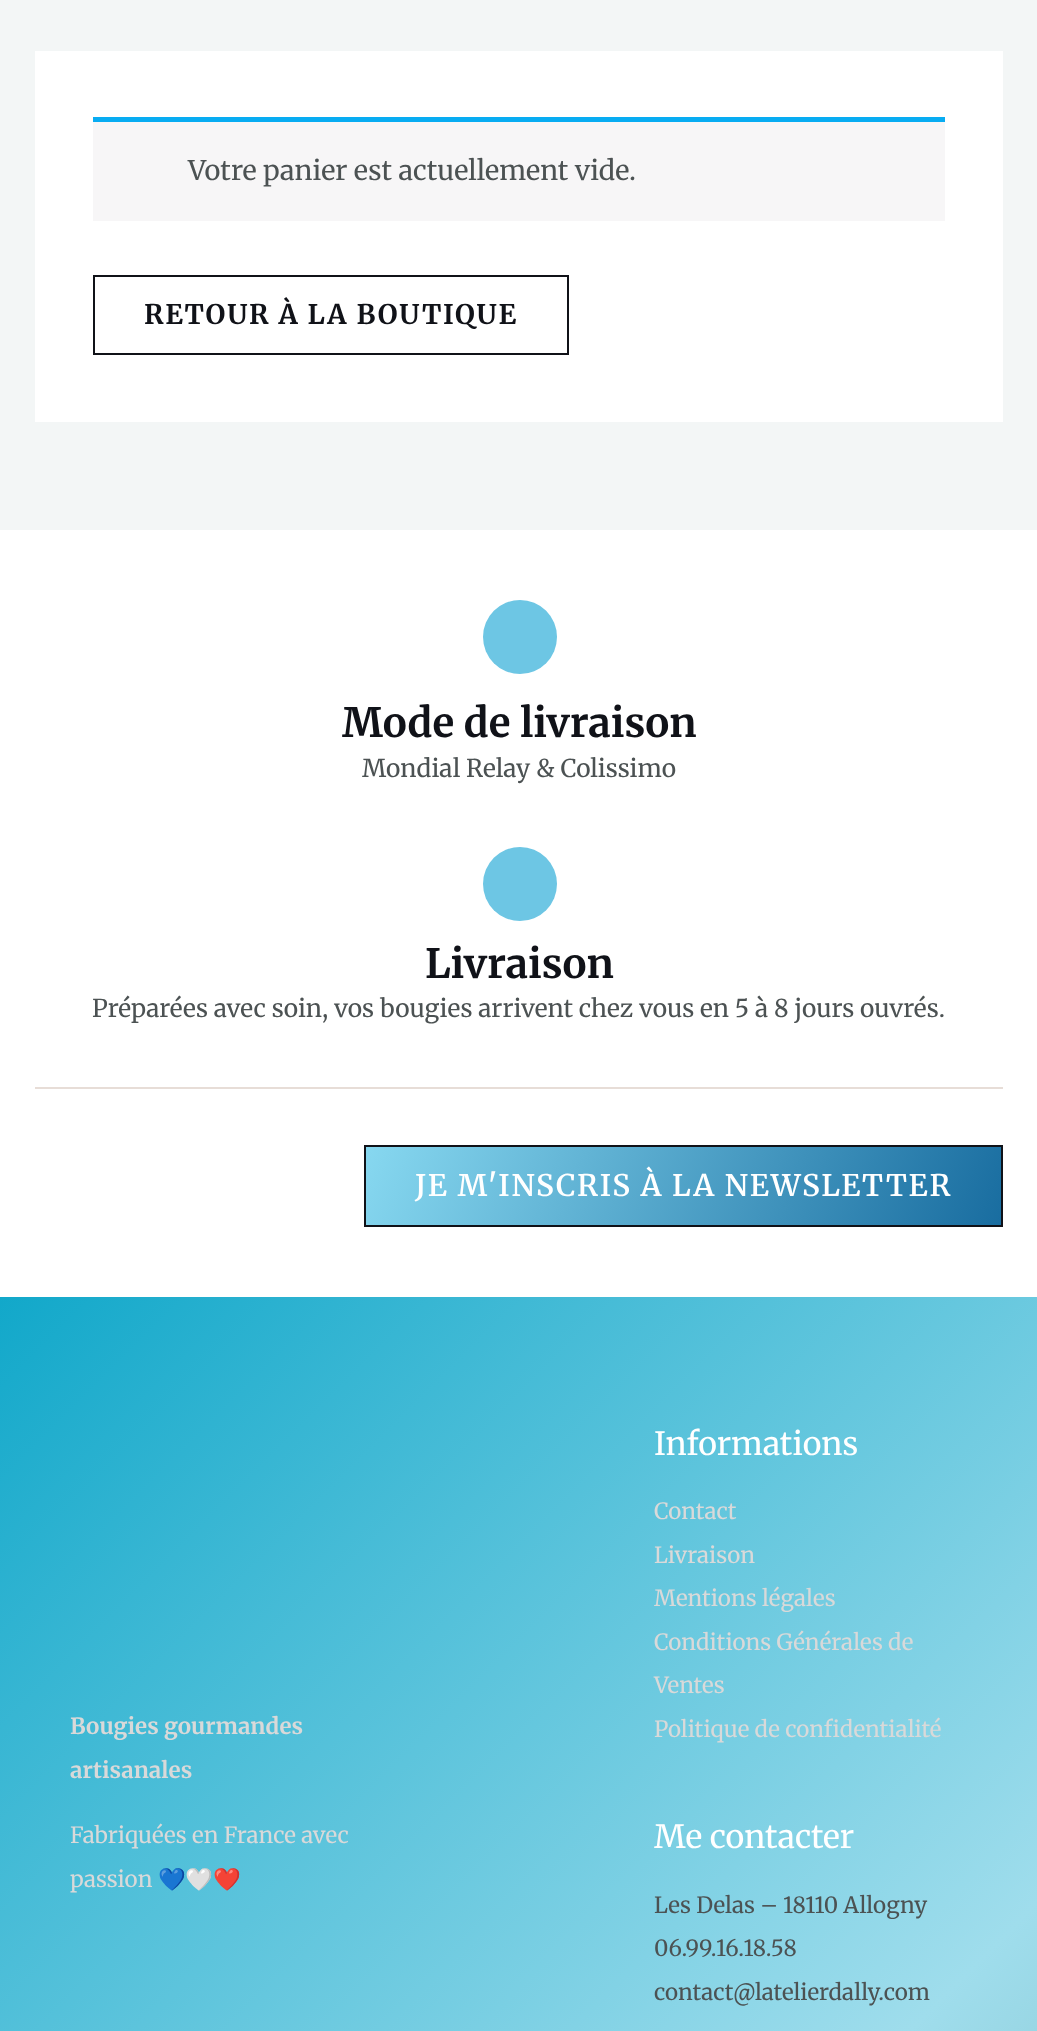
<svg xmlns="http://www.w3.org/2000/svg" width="1037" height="2031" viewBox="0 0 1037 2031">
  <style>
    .t1 { font: 27.1px Merriweather; fill: #4c5253; }
    .t2 { font: bold 27.1px Merriweather; letter-spacing: 1.75px; fill: #101218; }
    .t3 { font: bold 40.25px Merriweather; fill: #101218; }
    .t4 { font: 24.5px Merriweather; fill: #4c5253; }
    .t5 { font: 600 29.75px Merriweather; letter-spacing: 1.75px; fill: #fff; }
    .t6 { font: bold 22.3px Merriweather; fill: #d9d9d9; }
    .t7 { font: 22.3px Merriweather; fill: #d9d9d9; }
    .t8 { font: 22.3px Noto Color Emoji; fill: #d9d9d9; }
    .t9 { font: 32px Merriweather; fill: #fff; }
    .t10 { font: 22.3px Merriweather; fill: #4c5253; }
  </style>
  <defs>
    <linearGradient id="g1" gradientUnits="userSpaceOnUse" x1="393" y1="1074" x2="973" y2="1297"><stop offset="0" stop-color="#87d8f0"/><stop offset="1" stop-color="#196da0"/></linearGradient>
    <linearGradient id="g2" gradientUnits="userSpaceOnUse" x1="-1.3" y1="1298" x2="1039" y2="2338"><stop offset="0" stop-color="#12a8ca"/><stop offset="0.79" stop-color="#9fddec"/><stop offset="1" stop-color="#8ac7d2"/></linearGradient>
  </defs>
  <rect width="100%" height="100%" fill="#f3f6f6"/>
  <rect x="35" y="51" width="968" height="371" fill="#fff"/>
  <rect x="93" y="122" width="852" height="99" fill="#f7f6f7"/>
  <rect x="93" y="117" width="852" height="5" fill="#08acf2"/>
  <text x="188" y="180" class="t1">Votre panier est actuellement vide.</text>
  <rect x="94" y="276" width="474" height="78" fill="none" stroke="#101218" stroke-width="2"/>
  <text x="144" y="324" class="t2">RETOUR À LA BOUTIQUE</text>
  <rect x="0" y="530" width="1037" height="767" fill="#fff"/>
  <circle cx="520" cy="637" r="37" fill="#6dc6e4"/>
  <text x="342" y="737" class="t3">Mode de livraison</text>
  <text x="362" y="777" class="t4">Mondial Relay &amp; Colissimo</text>
  <circle cx="520" cy="884" r="37" fill="#6dc6e4"/>
  <text x="425" y="978" class="t3">Livraison</text>
  <text x="92" y="1017" class="t4">Préparées avec soin, vos bougies arrivent chez vous en 5 à 8 jours ouvrés.</text>
  <rect x="35" y="1087" width="968" height="2" fill="#e7ddd7"/>
  <rect x="366" y="1147" width="635" height="78" fill="url(#g1)"/>
  <rect x="365" y="1146" width="637" height="80" fill="none" stroke="#101218" stroke-width="2"/>
  <text x="415" y="1196" class="t5">JE M'INSCRIS À LA NEWSLETTER</text>
  <rect x="0" y="1297" width="1037" height="734" fill="url(#g2)"/>
  <text x="70" y="1734" class="t6">Bougies gourmandes</text>
  <text x="70" y="1778" class="t6">artisanales</text>
  <text x="70" y="1843" class="t7">Fabriquées en France avec</text>
  <text x="70" y="1887" class="t7">passion</text>
  <text x="158" y="1887" class="t8">💙🤍❤️</text>
  <text x="654" y="1455" class="t9">Informations</text>
  <text x="654" y="1519" class="t7">Contact</text>
  <text x="654" y="1563" class="t7">Livraison</text>
  <text x="654" y="1606" class="t7">Mentions légales</text>
  <text x="654" y="1650" class="t7">Conditions Générales de</text>
  <text x="654" y="1693" class="t7">Ventes</text>
  <text x="654" y="1737" class="t7">Politique de confidentialité</text>
  <text x="654" y="1848" class="t9">Me contacter</text>
  <text x="654" y="1913" class="t10">Les Delas – 18110 Allogny</text>
  <text x="654" y="1956" class="t10">06.99.16.18.58</text>
  <text x="654" y="2000" class="t10">contact@latelierdally.com</text>
</svg>
